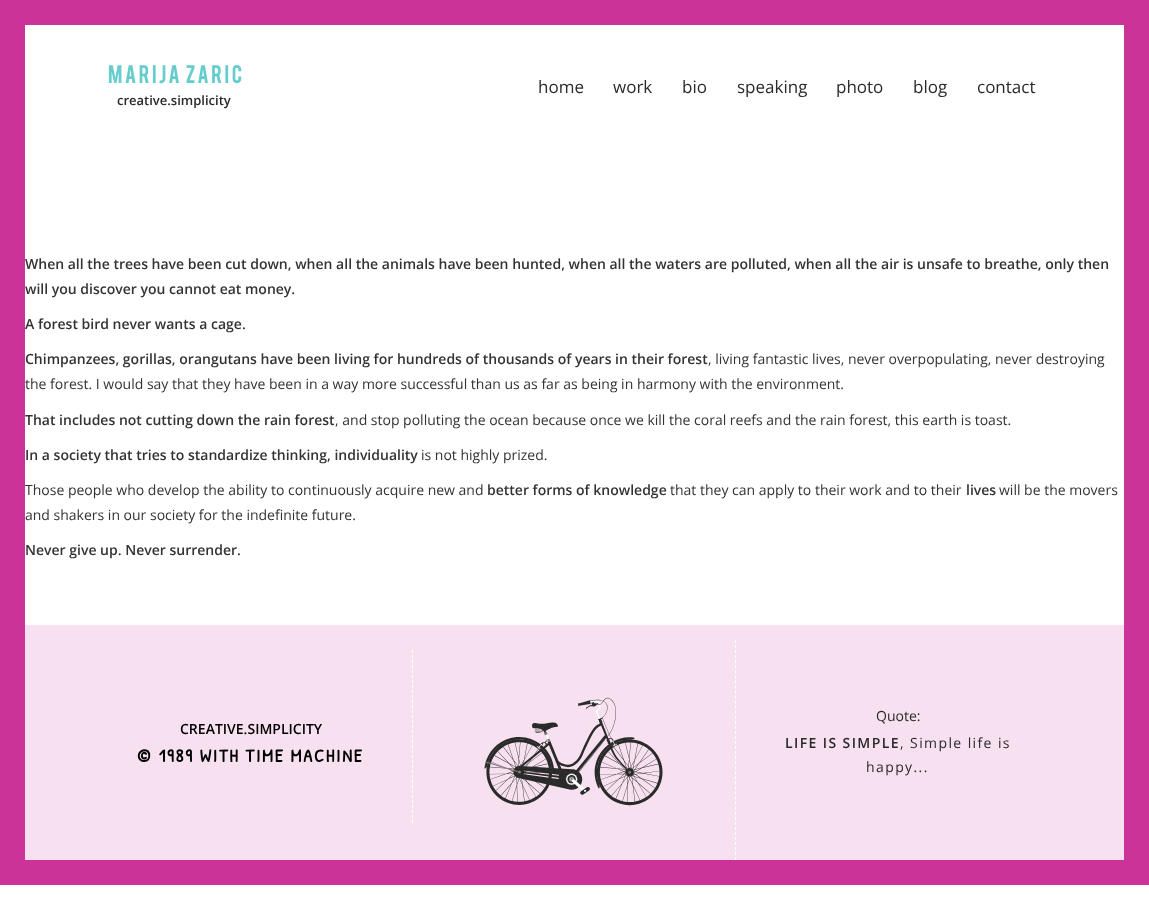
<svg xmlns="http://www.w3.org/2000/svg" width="1149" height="922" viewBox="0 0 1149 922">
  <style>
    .t1 { font: 20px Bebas; letter-spacing: 2px; fill: #6cc; }
    .t2 { font: 600 13px Open Sans; fill: #2a2a2a; }
    .t3 { font: 17px Open Sans; fill: #2a2a2a; }
    .t4 { font: 600 14px Open Sans; fill: #333; }
    .t5 { font: 14px Open Sans; fill: #333; }
    .t6 { font: 600 14px Open Sans; fill: #000; }
    .t7 { font: bold 18.25px Patrick Hand; letter-spacing: 1.8px; fill: #000; }
    .t8 { font: 14px Open Sans; fill: #2a2a2a; }
    .t9 { font: 600 14px Open Sans; letter-spacing: 1.4px; fill: #2a2a2a; }
    .t10 { font: 14px Open Sans; letter-spacing: 1.4px; fill: #2a2a2a; }
  </style>
  <rect width="100%" height="100%" fill="#fff"/>
  <rect x="12.5" y="12.5" width="1124" height="860" fill="none" stroke="#c39" stroke-width="25"/>
  <text x="108" y="83" class="t1">Marija Zaric</text>
  <text x="117" y="105" class="t2">creative.simplicity</text>
  <text x="538" y="93" class="t3">home</text>
  <text x="613" y="93" class="t3">work</text>
  <text x="682" y="93" class="t3">bio</text>
  <text x="737" y="93" class="t3">speaking</text>
  <text x="836" y="93" class="t3">photo</text>
  <text x="913" y="93" class="t3">blog</text>
  <text x="977" y="93" class="t3">contact</text>
  <text x="25" y="269" class="t4">When all the trees have been cut down, when all the animals have been hunted, when all the waters are polluted, when all the air is unsafe to breathe, only then</text>
  <text x="25" y="294" class="t4">will you discover you cannot eat money.</text>
  <text x="25" y="329" class="t4">A forest bird never wants a cage.</text>
  <text x="25" y="364" class="t4">Chimpanzees, gorillas, orangutans have been living for hundreds of thousands of years in their forest</text>
  <text x="708" y="364" class="t5">, living fantastic lives, never overpopulating, never destroying</text>
  <text x="25" y="389" class="t5">the forest. I would say that they have been in a way more successful than us as far as being in harmony with the environment.</text>
  <text x="25" y="425" class="t4">That includes not cutting down the rain forest</text>
  <text x="335" y="425" class="t5">, and stop polluting the ocean because once we kill the coral reefs and the rain forest, this earth is toast.</text>
  <text x="25" y="460" class="t4">In a society that tries to standardize thinking, individuality</text>
  <text x="421" y="460" class="t5">is not highly prized.</text>
  <text x="25" y="495" class="t5">Those people who develop the ability to continuously acquire new and</text>
  <text x="487" y="495" class="t4">better forms of knowledge</text>
  <text x="670" y="495" class="t5">that they can apply to their work and to their</text>
  <text x="966" y="495" class="t4">lives</text>
  <text x="999" y="495" class="t5">will be the movers</text>
  <text x="25" y="520" class="t5">and shakers in our society for the indefinite future.</text>
  <text x="25" y="555" class="t4">Never give up. Never surrender.</text>
  <rect x="25" y="625" width="1099" height="235" fill="#f7e0ef"/>
  <path d="M412.5 650V823" fill="none" stroke="#fff" stroke-dasharray="3 2"/>
  <text x="180" y="734" class="t6">CREATIVE.SIMPLICITY</text>
  <text x="137" y="762" class="t7">© 1989 WITH TIME MACHINE</text>
  <path d="M735.5 640V860" fill="none" stroke="#fff" stroke-dasharray="3 2.05"/>
  <image x="484" y="697" width="179" height="109" href="images/1.png"/>
  <text x="876" y="721" class="t8">Quote:</text>
  <text x="785" y="748" class="t9">LIFE IS SIMPLE</text>
  <text x="900" y="748" class="t10">, Simple life is</text>
  <text x="866" y="772" class="t10">happy...</text>
</svg>
